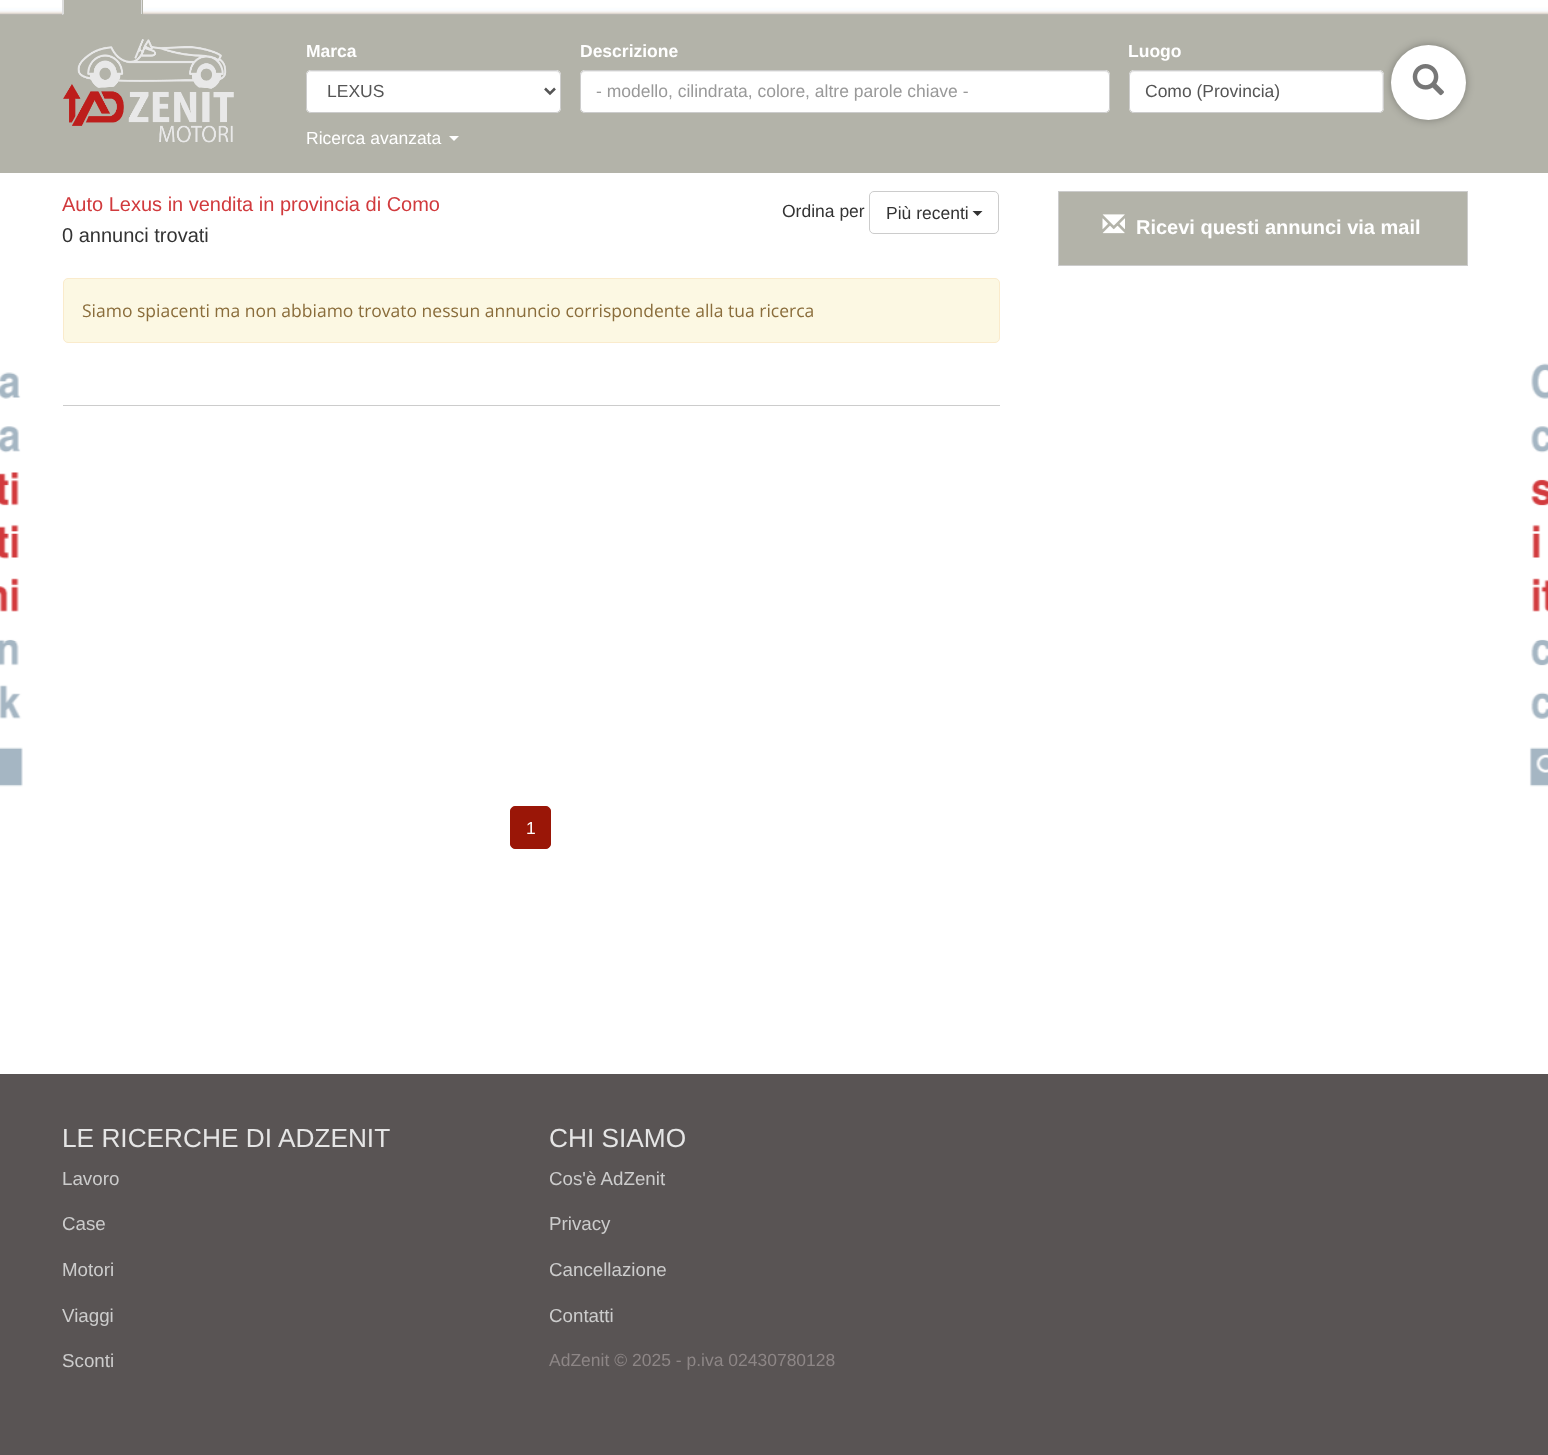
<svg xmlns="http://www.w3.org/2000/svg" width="1548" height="1455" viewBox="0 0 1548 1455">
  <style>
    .t1 { font: bold 17.5px Liberation Sans; fill: #fff; }
    .t2 { font: 17.5px Liberation Sans; fill: #555; }
    .t3 { font: 17.5px Liberation Sans; fill: #999; }
    .t4 { font: 17.5px Liberation Sans; fill: #fff; }
    .t5 { font: 20px Liberation Sans; fill: #d13a3d; }
    .t6 { font: 20px Liberation Sans; fill: #333; }
    .t7 { font: 17.5px Liberation Sans; fill: #333; }
    .t8 { font: 17.5px Open Sans; fill: #8a6d3b; }
    .t9 { font: bold 20px Liberation Sans; fill: #fff; }
    .t10 { font: 26.25px Liberation Sans; fill: #e5e5e5; }
    .t11 { font: 18.75px Liberation Sans; fill: #ccc; }
    .t12 { font: 17.5px Liberation Sans; fill: #8d8686; }
  </style>
  <rect width="100%" height="100%" fill="#fff"/>
  <rect x="0" y="15" width="1548" height="158" fill="#b3b3a9"/>
  <image x="0" y="0" width="1548" height="15" href="images/1.png"/>
  <image x="63" y="39" width="171" height="104" href="images/2.png"/>
  <rect x="63" y="0" width="80" height="15" fill="#b3b3a9"/>
  <path d="M142 14V-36C142-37 142-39 141-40L140-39L141-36V14Z" fill="#ddd"/>
  <path d="M62 15L64 14V-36C64-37 64-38 65-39L64-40L62-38Z" fill="#ddd"/>
  <text x="306" y="57" class="t1">Marca</text>
  <rect x="306" y="70" width="255" height="43" rx="5" fill="#fff"/>
  <path d="M311 72H556C558 72 560 74 560 76V75C560 73 558 71 556 71H312C310 71 308 73 308 75V76C308 74 309 72 311 72Z" fill="#ececec"/>
  <rect x="306.5" y="70.5" width="254" height="42" rx="4.5" fill="none" stroke="#ccc"/>
  <path d="M545 88.5L550 93.5L555 88.5" fill="none" stroke="#555" stroke-width="2.5"/>
  <text x="327" y="97" class="t2">LEXUS</text>
  <text x="580" y="57" class="t1">Descrizione</text>
  <rect x="580" y="70" width="530" height="43" rx="5" fill="#fff"/>
  <path d="M585 72H1105C1107 72 1109 74 1109 76V75C1109 73 1107 71 1105 71H585C583 71 581 73 581 75V76C581 74 583 72 585 72Z" fill="#ececec"/>
  <rect x="580.5" y="70.5" width="529" height="42" rx="4.5" fill="none" stroke="#ccc"/>
  <text x="596" y="97" class="t3">- modello, cilindrata, colore, altre parole chiave -</text>
  <text x="1128" y="57" class="t1">Luogo</text>
  <rect x="1129" y="70" width="255" height="43" rx="5" fill="#fff"/>
  <path d="M1134 72H1379C1381 72 1382 74 1382 76V110C1383 109 1383 108 1383 107V75C1383 73 1381 71 1379 71H1134C1132 71 1130 73 1130 75V76C1130 74 1132 72 1134 72Z" fill="#ececec"/>
  <rect x="1129.5" y="70.5" width="254" height="42" rx="4.5" fill="none" stroke="#ccc"/>
  <text x="1145" y="97" class="t2">Como (Provincia)</text>
  <text x="306" y="144" class="t4">Ricerca avanzata</text>
  <path d="M449 136H459L454 141Z" fill="#fff"/>
  <rect x="1391" y="45" width="75" height="75" rx="37.5" fill="#0000004d" filter="blur(4px)"/>
  <circle cx="1428.5" cy="82.5" r="37.5" fill="#fff"/>
  <image x="1412" y="64" width="32" height="32" href="images/3.png"/>
  <image x="0" y="173" width="1548" height="614" href="images/4.png"/>
  <text x="62" y="211" class="t5">Auto Lexus in vendita in provincia di Como</text>
  <text x="62" y="242" class="t6">0 annunci trovati</text>
  <text x="782" y="217" class="t7">Ordina per</text>
  <rect x="869.5" y="191.5" width="129" height="42" rx="4.5" fill="none" stroke="#ccc"/>
  <text x="886" y="219" class="t7">Più recenti</text>
  <path d="M972.5 211H982.5L977.5 216Z" fill="#333"/>
  <rect x="63.5" y="278.5" width="936" height="64" rx="4.5" fill="#fcf8e3" stroke="#faebcc"/>
  <text x="82" y="317" class="t8">Siamo spiacenti ma non abbiamo trovato nessun annuncio corrispondente alla tua ricerca</text>
  <rect x="63" y="405" width="937" height="1" fill="#ccc"/>
  <rect x="510.5" y="806.5" width="40" height="42" rx="4.5" fill="#9a1607" stroke="#9a1607"/>
  <text x="526" y="834" class="t4">1</text>
  <rect x="1058.5" y="191.5" width="409" height="74" fill="#b3b3a9" stroke="#ccc"/>
  <image x="1102" y="214" width="23" height="20" href="images/5.png"/>
  <text x="1136" y="234" class="t9">Ricevi questi annunci via mail</text>
  <rect x="0" y="1074" width="1548" height="381" fill="#595454"/>
  <text x="62" y="1147" class="t10">LE RICERCHE DI ADZENIT</text>
  <text x="62" y="1185" class="t11">Lavoro</text>
  <text x="62" y="1230" class="t11">Case</text>
  <text x="62" y="1276" class="t11">Motori</text>
  <text x="62" y="1322" class="t11">Viaggi</text>
  <text x="62" y="1367" class="t11">Sconti</text>
  <text x="549" y="1147" class="t10">CHI SIAMO</text>
  <text x="549" y="1185" class="t11">Cos'è AdZenit</text>
  <text x="549" y="1230" class="t11">Privacy</text>
  <text x="549" y="1276" class="t11">Cancellazione</text>
  <text x="549" y="1322" class="t11">Contatti</text>
  <text x="549" y="1366" class="t12">AdZenit © 2025 - p.iva 02430780128</text>
</svg>
